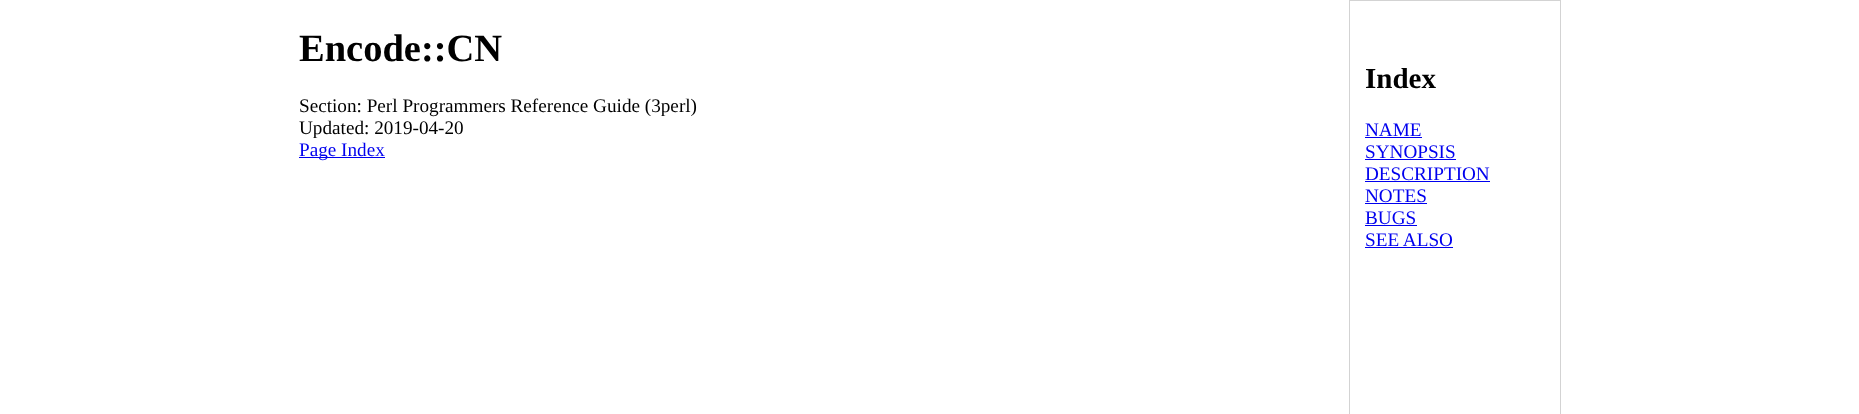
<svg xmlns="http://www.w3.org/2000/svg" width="1859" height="414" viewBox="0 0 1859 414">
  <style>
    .t1 { font: bold 38.5px Liberation Serif; fill: #000; }
    .t2 { font: 19.2px Liberation Serif; fill: #000; }
    .t3 { font: 19.2px Liberation Serif; fill: #00e; }
    .t4 { font: bold 29px Liberation Serif; fill: #000; }
  </style>
  <rect width="100%" height="100%" fill="#fff"/>
  <text x="299" y="61" class="t1">Encode::CN</text>
  <text x="299" y="112" class="t2">Section: Perl Programmers Reference Guide (3perl)</text>
  <text x="299" y="134" class="t2">Updated: 2019-04-20</text>
  <rect x="299" y="157" width="86" height="1" fill="#00e"/>
  <text x="299" y="156" class="t3">Page Index</text>
  <rect x="1349.5" y="0.5" width="211" height="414" fill="none" stroke="#d3d3d3"/>
  <text x="1365" y="88" class="t4">Index</text>
  <text x="1365" y="136" class="t3">NAME</text>
  <rect x="1365" y="137" width="57" height="1" fill="#00e"/>
  <text x="1365" y="158" class="t3">SYNOPSIS</text>
  <rect x="1365" y="159" width="91" height="1" fill="#00e"/>
  <text x="1365" y="180" class="t3">DESCRIPTION</text>
  <rect x="1365" y="181" width="125" height="1" fill="#00e"/>
  <text x="1365" y="202" class="t3">NOTES</text>
  <rect x="1365" y="203" width="62" height="1" fill="#00e"/>
  <text x="1365" y="224" class="t3">BUGS</text>
  <rect x="1365" y="225" width="52" height="1" fill="#00e"/>
  <text x="1365" y="246" class="t3">SEE ALSO</text>
  <rect x="1365" y="247" width="88" height="1" fill="#00e"/>
</svg>
